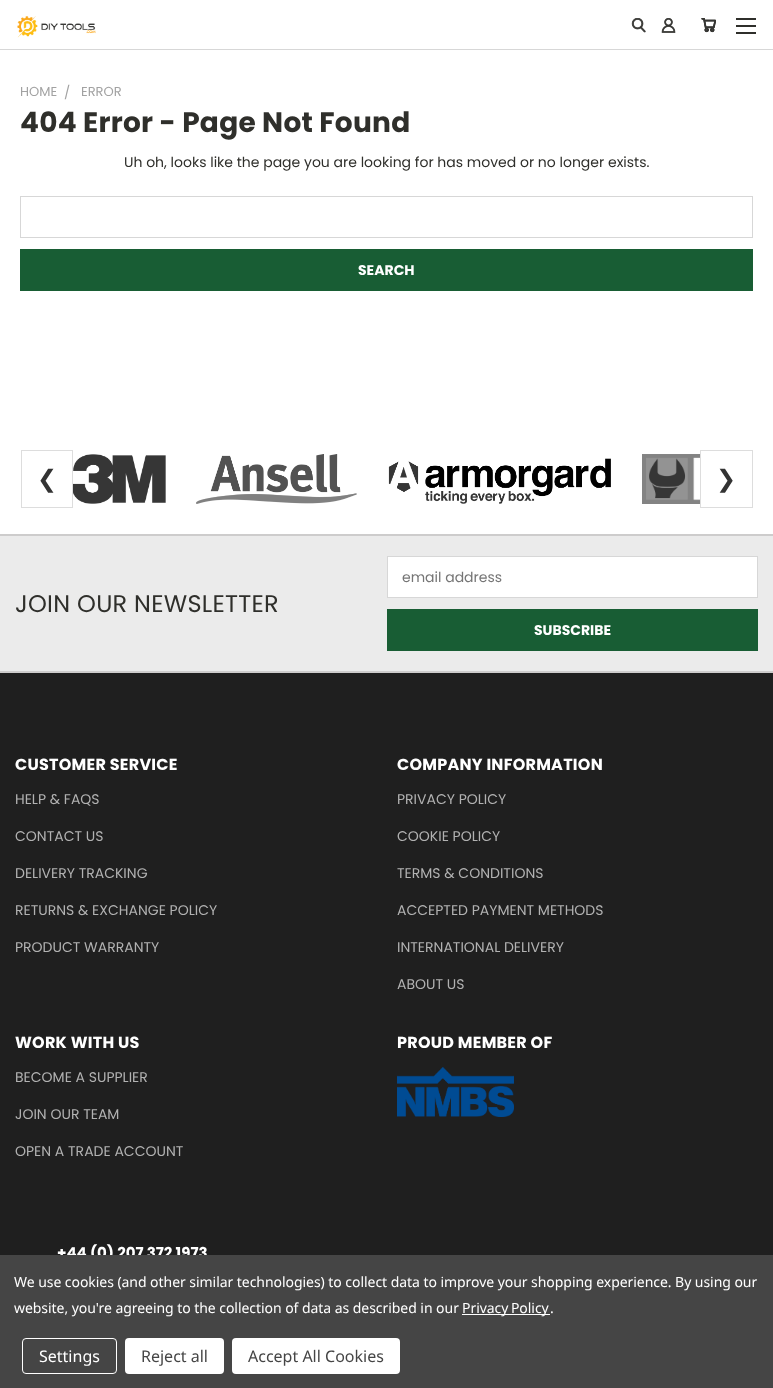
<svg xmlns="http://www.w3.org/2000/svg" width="773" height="1388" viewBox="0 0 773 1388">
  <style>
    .t1 { font: 13px Poppins; fill: #a2a2a2; }
    .t2 { font: bold 28px Poppins; letter-spacing: 0.25px; fill: #2f2f2b; }
    .t3 { font: 14px Poppins; fill: #2f2f2b; }
    .t4 { font: bold 14px Poppins; fill: #fff; }
    .t5 { font: 24px DejaVu Sans; fill: #333; }
    .t6 { font: 24px Poppins; letter-spacing: 0.25px; fill: #2f2f2b; }
    .t7 { font: 14px Poppins; fill: #757575; }
    .t8 { font: bold 16px Poppins; letter-spacing: 0.25px; fill: #fff; }
    .t9 { font: 14px Poppins; fill: #b2b2b2; }
    .t10 { font: bold 15px Poppins; fill: #fff; }
    .t11 { font: 14px Noto Sans; letter-spacing: -0.05px; fill: #fff; }
    .t12 { font: 16px Noto Sans; fill: #fff; }
    .t13 { font: 16px Noto Sans; fill: #454545; }
  </style>
  <rect width="100%" height="100%" fill="#fff"/>
  <rect x="0" y="49" width="773" height="1" fill="#d7d7d7"/>
  <image x="17" y="16" width="79" height="22" href="images/1.png"/>
  <image x="631" y="18" width="15" height="15" href="images/2.png"/>
  <image x="661" y="18" width="15" height="15" href="images/3.png"/>
  <image x="701" y="18" width="15" height="15" href="images/4.png"/>
  <rect x="736" y="25" width="20" height="2" fill="#2f2f2b"/>
  <rect x="736" y="18" width="20" height="2" fill="#2f2f2b"/>
  <rect x="736" y="32" width="20" height="2" fill="#2f2f2b"/>
  <text x="20" y="96" class="t1">HOME</text>
  <text x="64" y="97" class="t1">/</text>
  <text x="81" y="96" class="t1">ERROR</text>
  <text x="20" y="132" class="t2">404 Error - Page Not Found</text>
  <text x="124" y="167" class="t3">Uh oh, looks like the page you are looking for has moved or no longer exists.</text>
  <rect x="20.5" y="196.5" width="732" height="41" fill="none" stroke="#d7d7d7"/>
  <rect x="20" y="249" width="733" height="42" fill="#185d34"/>
  <text x="358" y="275" class="t4">SEARCH</text>
  <rect x="21.5" y="450.5" width="51" height="57" fill="none" stroke="#ddd"/>
  <text x="37" y="487" class="t5">❮</text>
  <image x="73" y="454" width="93" height="50" href="images/5.png"/>
  <image x="196" y="454" width="161" height="50" href="images/6.png"/>
  <image x="388" y="458" width="223" height="46" href="images/7.png"/>
  <image x="642" y="454" width="58" height="50" href="images/8.png"/>
  <rect x="700.5" y="450.5" width="52" height="57" fill="none" stroke="#ddd"/>
  <text x="716" y="487" class="t5">❯</text>
  <rect x="0" y="536" width="773" height="135" fill="#ebebeb"/>
  <rect x="0" y="534" width="773" height="2" fill="#cdcccc"/>
  <text x="15" y="612" class="t6">JOIN OUR NEWSLETTER</text>
  <rect x="387.5" y="556.5" width="370" height="41" fill="#fff" stroke="#d7d7d7"/>
  <text x="402" y="582" class="t7">email address</text>
  <rect x="387" y="609" width="371" height="42" fill="#185d34"/>
  <text x="534" y="635" class="t4">SUBSCRIBE</text>
  <rect x="0" y="673" width="773" height="582" fill="#1f1f1f"/>
  <rect x="0" y="671" width="773" height="2" fill="#cdcccc"/>
  <text x="15" y="770" class="t8">CUSTOMER SERVICE</text>
  <text x="15" y="804" class="t9">HELP &amp; FAQS</text>
  <text x="15" y="841" class="t9">CONTACT US</text>
  <text x="15" y="878" class="t9">DELIVERY TRACKING</text>
  <text x="15" y="915" class="t9">RETURNS &amp; EXCHANGE POLICY</text>
  <text x="15" y="952" class="t9">PRODUCT WARRANTY</text>
  <text x="397" y="770" class="t8">COMPANY INFORMATION</text>
  <text x="397" y="804" class="t9">PRIVACY POLICY</text>
  <text x="397" y="841" class="t9">COOKIE POLICY</text>
  <text x="397" y="878" class="t9">TERMS &amp; CONDITIONS</text>
  <text x="397" y="915" class="t9">ACCEPTED PAYMENT METHODS</text>
  <text x="397" y="952" class="t9">INTERNATIONAL DELIVERY</text>
  <text x="397" y="989" class="t9">ABOUT US</text>
  <text x="15" y="1048" class="t8">WORK WITH US</text>
  <text x="15" y="1082" class="t9">BECOME A SUPPLIER</text>
  <text x="15" y="1119" class="t9">JOIN OUR TEAM</text>
  <text x="15" y="1156" class="t9">OPEN A TRADE ACCOUNT</text>
  <text x="397" y="1048" class="t8">PROUD MEMBER OF</text>
  <image x="397" y="1067" width="117" height="50" href="images/9.png"/>
  <text x="57" y="1258" class="t10">+44 (0) 207 372 1973</text>
  <rect x="0" y="1255" width="773" height="133" fill="#454545"/>
  <text x="14" y="1287" class="t11">We use cookies (and other similar technologies) to collect data to improve your shopping experience. By using our</text>
  <text x="14" y="1313" class="t11">website, you're agreeing to the collection of data as described in our</text>
  <rect x="462" y="1314" width="88" height="1" fill="#fff"/>
  <text x="462" y="1313" word-spacing="-1" class="t11">Privacy Policy</text>
  <text x="550" y="1313" class="t11">.</text>
  <rect x="22.5" y="1338.5" width="94" height="35" rx="3.5" fill="none" stroke="#fff"/>
  <text x="39" y="1362" class="t12">Settings</text>
  <rect x="125" y="1338" width="99" height="36" rx="4" fill="#fff"/>
  <text x="141" y="1362" class="t13">Reject all</text>
  <rect x="232" y="1338" width="168" height="36" rx="4" fill="#fff"/>
  <text x="248" y="1362" class="t13">Accept All Cookies</text>
</svg>
